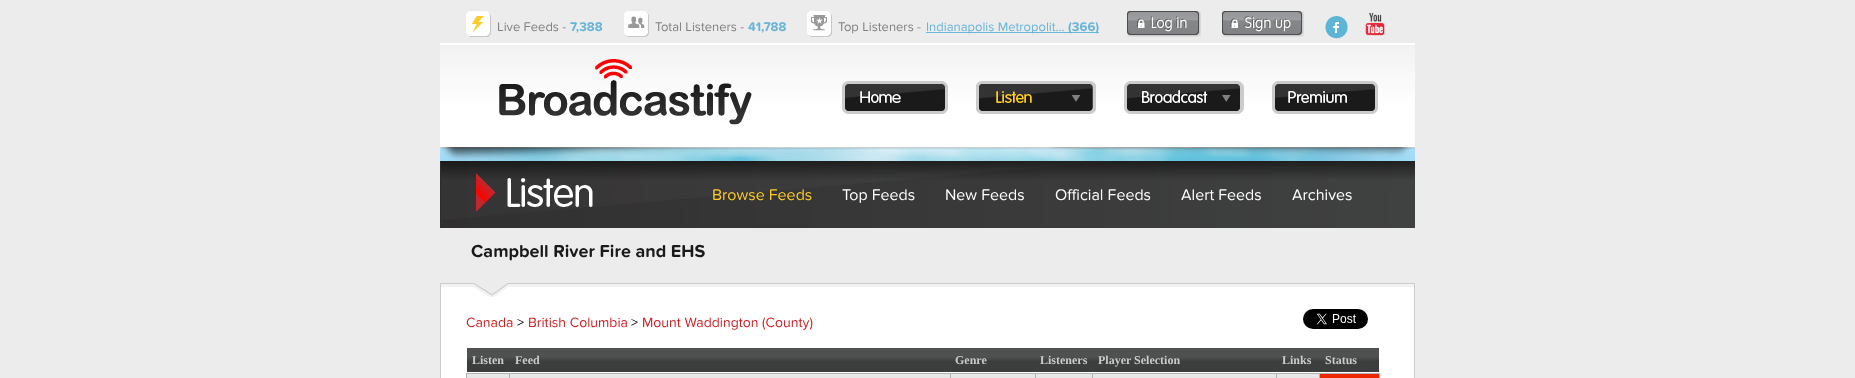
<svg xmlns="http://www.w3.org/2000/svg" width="1855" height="378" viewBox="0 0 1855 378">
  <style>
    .t1 { font: 13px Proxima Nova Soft; fill: #808080; }
    .t2 { font: bold 13px Proxima Nova Soft; fill: #68b5d6; }
    .t3 { font: 13px Proxima Nova Soft; fill: #68b5d6; }
    .t4 { font: 16px Proxima Nova Soft; fill: #ffcb27; }
    .t5 { font: 16px Proxima Nova Soft; fill: #fff; }
    .t6 { font: bold 18px Proxima Nova Soft; fill: #1a1a1a; }
    .t7 { font: 14px Proxima Nova Soft; fill: #cf1e23; }
    .t8 { font: 14px Proxima Nova Soft; fill: #000; }
    .t9 { font: bold 12px Liberation Serif; fill: #ccc; }
  </style>
  <rect width="100%" height="100%" fill="#ececec"/>
  <image x="466" y="11" width="25" height="26" href="images/1.png"/>
  <text x="497" y="31" class="t1">Live Feeds -</text>
  <text x="570" y="31" class="t2">7,388</text>
  <image x="624" y="11" width="25" height="26" href="images/2.png"/>
  <text x="655" y="31" class="t1">Total Listeners -</text>
  <text x="748" y="31" class="t2">41,788</text>
  <image x="807" y="11" width="25" height="26" href="images/3.png"/>
  <text x="838" y="31" class="t1">Top Listeners -</text>
  <rect x="926" y="32" width="173" height="1" fill="#68b5d6"/>
  <text x="926" y="31" class="t3">Indianapolis Metropolit...</text>
  <text x="1068" y="31" class="t2">(366)</text>
  <image x="1127" y="11" width="74" height="26" href="images/4.png"/>
  <image x="1222" y="11" width="82" height="26" href="images/5.png"/>
  <image x="1325" y="16" width="23" height="23" href="images/6.png"/>
  <image x="1365" y="12" width="20" height="24" href="images/7.png"/>
  <rect x="440" y="43" width="975" height="2" fill="#fff"/>
  <image x="440" y="45" width="975" height="103" href="images/8.png"/>
  <image x="842" y="81" width="106" height="33" href="images/9.png"/>
  <image x="976" y="81" width="120" height="33" href="images/10.png"/>
  <image x="1124" y="81" width="120" height="33" href="images/11.png"/>
  <image x="1272" y="81" width="106" height="33" href="images/12.png"/>
  <image x="440" y="148" width="975" height="13" href="images/13.png"/>
  <image x="440" y="161" width="975" height="67" href="images/14.png"/>
  <text x="712" y="200" class="t4">Browse Feeds</text>
  <text x="842" y="200" class="t5">Top Feeds</text>
  <text x="945" y="200" class="t5">New Feeds</text>
  <text x="1055" y="200" class="t5">Official Feeds</text>
  <text x="1181" y="200" class="t5">Alert Feeds</text>
  <text x="1292" y="200" class="t5">Archives</text>
  <image x="440" y="283" width="975" height="14" href="images/15.png"/>
  <text x="471" y="257" class="t6">Campbell River Fire and EHS</text>
  <rect x="441" y="297" width="973" height="81" fill="#fff"/>
  <rect x="1414" y="297" width="1" height="81" fill="#ccc"/>
  <rect x="440" y="297" width="1" height="81" fill="#ccc"/>
  <text x="466" y="327" class="t7">Canada</text>
  <text x="517" y="327" class="t8">&gt;</text>
  <text x="528" y="327" class="t7">British Columbia</text>
  <text x="631" y="327" class="t8">&gt;</text>
  <text x="642" y="327" class="t7">Mount Waddington (County)</text>
  <image x="1303" y="309" width="65" height="20" href="images/16.png"/>
  <image x="467" y="348" width="43" height="24" href="images/17.png"/>
  <text x="472" y="364" class="t9">Listen</text>
  <image x="510" y="348" width="440" height="24" href="images/18.png"/>
  <text x="515" y="364" class="t9">Feed</text>
  <image x="950" y="348" width="85" height="24" href="images/19.png"/>
  <text x="955" y="364" class="t9">Genre</text>
  <image x="1035" y="348" width="58" height="24" href="images/20.png"/>
  <text x="1040" y="364" class="t9">Listeners</text>
  <image x="1093" y="348" width="184" height="24" href="images/21.png"/>
  <text x="1098" y="364" class="t9">Player Selection</text>
  <image x="1277" y="348" width="43" height="24" href="images/17.png"/>
  <text x="1282" y="364" class="t9">Links</text>
  <image x="1320" y="348" width="59" height="24" href="images/22.png"/>
  <text x="1325" y="364" class="t9">Status</text>
  <rect x="467" y="374" width="853" height="4" fill="#e7e7e7"/>
  <rect x="1319" y="373" width="61" height="1" fill="#b3b3b3"/>
  <rect x="1319" y="373" width="1" height="5" fill="#b3b3b3"/>
  <rect x="1276" y="373" width="44" height="1" fill="#b3b3b3"/>
  <rect x="1276" y="373" width="1" height="5" fill="#b3b3b3"/>
  <rect x="1092" y="373" width="185" height="1" fill="#b3b3b3"/>
  <rect x="1092" y="373" width="1" height="5" fill="#b3b3b3"/>
  <rect x="1035" y="373" width="58" height="1" fill="#b3b3b3"/>
  <rect x="1035" y="373" width="1" height="5" fill="#b3b3b3"/>
  <rect x="950" y="373" width="86" height="1" fill="#b3b3b3"/>
  <rect x="950" y="373" width="1" height="5" fill="#b3b3b3"/>
  <rect x="509" y="373" width="442" height="1" fill="#b3b3b3"/>
  <rect x="509" y="373" width="1" height="5" fill="#b3b3b3"/>
  <rect x="466" y="373" width="44" height="1" fill="#b3b3b3"/>
  <rect x="466" y="373" width="1" height="5" fill="#b3b3b3"/>
  <rect x="1320" y="374" width="59" height="4" fill="#eb2600"/>
  <rect x="1379" y="373" width="1" height="5" fill="#b3b3b3"/>
</svg>
